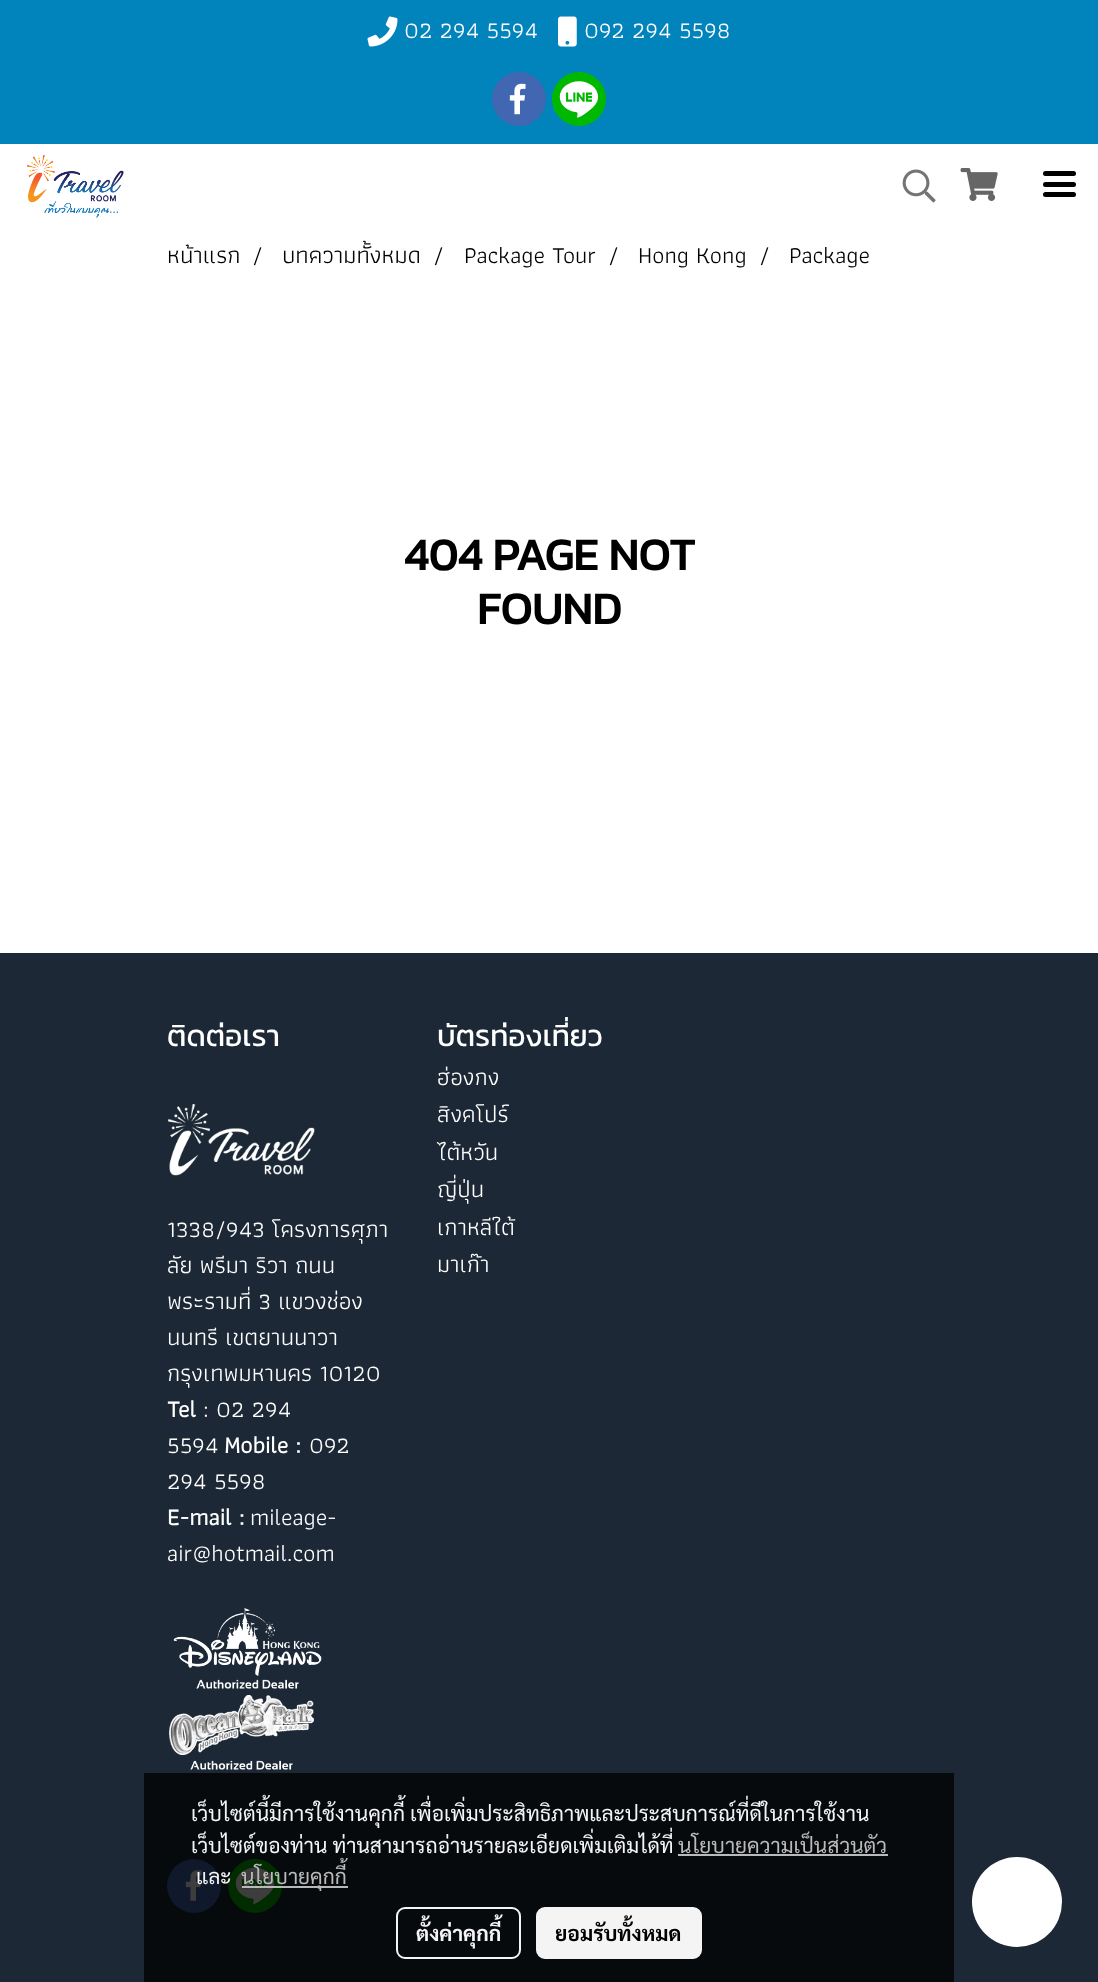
<svg xmlns="http://www.w3.org/2000/svg" width="1098" height="1982" viewBox="0 0 1098 1982">
  <style>
    .t1 { font: 24px Athiti; fill: #fff; }
    .t2 { font: 24px Athiti; fill: #000; }
    .t3 { font: bold 45px Kanit; fill: #000; }
    .t4 { font: 30px Kanit; fill: #fff; }
    .t5 { font: bold 24px Athiti; fill: #fff; }
    .t6 { font: 21px Sarabun; fill: #f4f4f5; }
    .t7 { font: 21px Sarabun; fill: #bababb; }
    .t8 { font: bold 21px Sarabun; fill: #f4f4f5; }
    .t9 { font: bold 21px Sarabun; fill: #000; }
  </style>
  <rect width="100%" height="100%" fill="#fff"/>
  <rect x="0" y="0" width="1098" height="144" fill="#0183bc"/>
  <image x="367" y="16" width="31" height="31" href="images/1.png"/>
  <text x="404" y="38" class="t1">02 294 5594</text>
  <image x="558" y="16" width="19" height="31" href="images/2.png"/>
  <text x="584" y="38" class="t1">092 294 5598</text>
  <circle cx="519" cy="99" r="27" fill="#4267b2"/>
  <image x="509" y="83" width="17" height="32" href="images/3.png"/>
  <circle cx="579" cy="99" r="27" fill="#00b800"/>
  <image x="559" y="72" width="39" height="54" href="images/4.png"/>
  <image x="27" y="155" width="97" height="63" href="images/5.png"/>
  <image x="902" y="169" width="34" height="34" href="images/6.png"/>
  <image x="960" y="168" width="38" height="33" href="images/7.png"/>
  <rect x="1043" y="182" width="33" height="5" rx="2.5" fill="#000"/>
  <rect x="1043" y="171" width="33" height="5" rx="2.5" fill="#000"/>
  <rect x="1043" y="192" width="33" height="5" rx="2.5" fill="#000"/>
  <text x="167" y="263" class="t2">หน้าแรก</text>
  <text x="252" y="263" class="t2">/</text>
  <text x="282" y="263" class="t2">บทความทั้งหมด</text>
  <text x="433" y="263" class="t2">/</text>
  <text x="464" y="263" class="t2">Package Tour</text>
  <text x="608" y="263" class="t2">/</text>
  <text x="638" y="263" class="t2">Hong Kong</text>
  <text x="759" y="263" class="t2">/</text>
  <text x="789" y="263" class="t2">Package</text>
  <text x="404" y="570" class="t3">404 PAGE NOT</text>
  <text x="477" y="624" class="t3">FOUND</text>
  <rect x="0" y="953" width="1098" height="1029" fill="#1c2835"/>
  <rect x="144" y="1773" width="810" height="209" fill="#070a0d"/>
  <text x="167" y="1046" class="t4">ติดต่อเรา</text>
  <image x="168" y="1104" width="147" height="72" href="images/8.png"/>
  <text x="167" y="1237" class="t1">1338/943 โครงการศุภา</text>
  <text x="167" y="1273" class="t1">ลัย พรีมา ริวา ถนน</text>
  <text x="167" y="1309" class="t1">พระรามที่ 3 แขวงช่อง</text>
  <text x="167" y="1345" class="t1">นนทรี เขตยานนาวา</text>
  <text x="167" y="1381" class="t1">กรุงเทพมหานคร 10120</text>
  <text x="167" y="1417" class="t5">Tel</text>
  <text x="203" y="1417" class="t1">: 02 294</text>
  <text x="167" y="1453" class="t1">5594</text>
  <text x="224" y="1453" class="t5">Mobile :</text>
  <text x="309" y="1453" class="t1">092</text>
  <text x="167" y="1489" class="t1">294 5598</text>
  <text x="167" y="1525" class="t5">E-mail :</text>
  <text x="250" y="1525" class="t1">mileage-</text>
  <text x="167" y="1561" class="t1">air@hotmail.com</text>
  <image x="173" y="1608" width="149" height="81" href="images/9.png"/>
  <image x="169" y="1695" width="145" height="75" href="images/10.png"/>
  <circle cx="194" cy="1886" r="27" fill="#10192b"/>
  <image x="185" y="1870" width="17" height="31" href="images/11.png"/>
  <circle cx="255" cy="1886" r="27" fill="#002c00"/>
  <image x="235" y="1859" width="39" height="53" href="images/12.png"/>
  <text x="437" y="1046" class="t4">บัตรท่องเที่ยว</text>
  <text x="437" y="1085" class="t1">ฮ่องกง</text>
  <text x="437" y="1122" class="t1">สิงคโปร์</text>
  <text x="437" y="1160" class="t1">ไต้หวัน</text>
  <text x="437" y="1197" class="t1">ญี่ปุ่น</text>
  <text x="437" y="1235" class="t1">เกาหลีใต้</text>
  <text x="437" y="1272" class="t1">มาเก๊า</text>
  <text x="191" y="1821" class="t6">เว็บไซต์นี้มีการใช้งานคุกกี้ เพื่อเพิ่มประสิทธิภาพและประสบการณ์ที่ดีในการใช้งาน</text>
  <text x="191" y="1853" class="t6">เว็บไซต์ของท่าน ท่านสามารถอ่านรายละเอียดเพิ่มเติมได้ที่</text>
  <text x="678" y="1853" class="t7">นโยบายความเป็นส่วนตัว</text>
  <rect x="678" y="1854" width="210" height="2" fill="#bababb"/>
  <text x="196" y="1884" class="t6">และ</text>
  <rect x="242" y="1886" width="106" height="2" fill="#c2c2c2f2"/>
  <text x="241" y="1884" class="t7">นโยบายคุกกี้</text>
  <rect x="397" y="1908" width="123" height="50" rx="8" fill="none" stroke="#f4f4f5" stroke-width="2"/>
  <text x="416" y="1941" class="t8">ตั้งค่าคุกกี้</text>
  <rect x="537" y="1908" width="164" height="50" rx="8" fill="#f4f4f5" stroke="#f4f4f5" stroke-width="2"/>
  <text x="555" y="1941" class="t9">ยอมรับทั้งหมด</text>
  <circle cx="1017" cy="1902" r="45" fill="#fff"/>
</svg>
